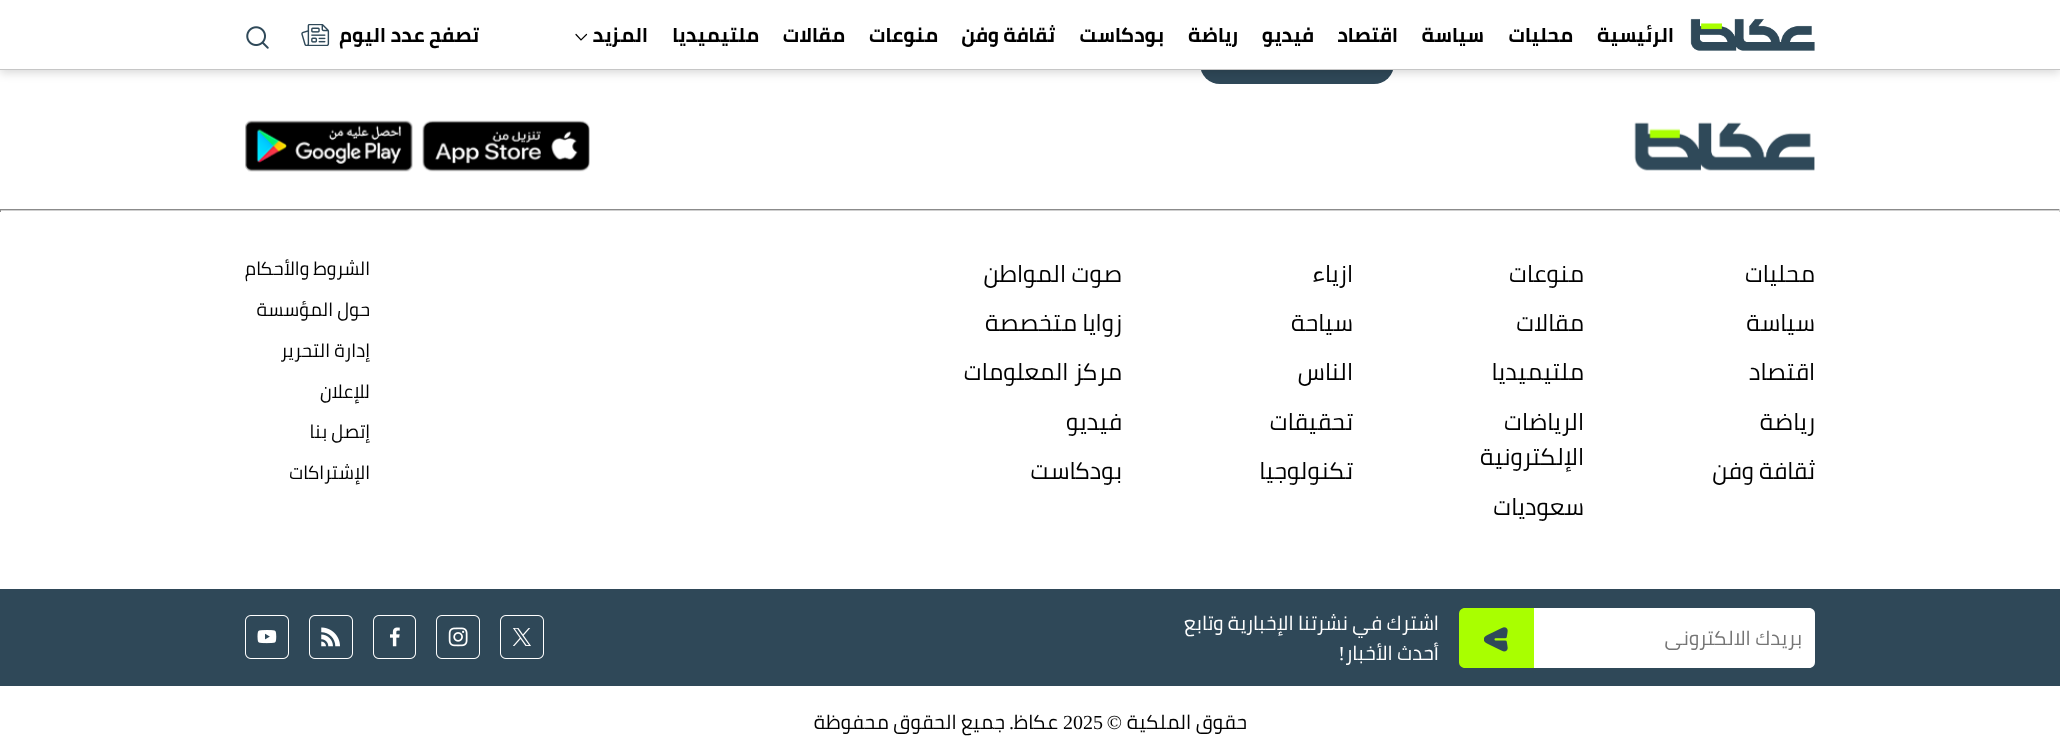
<svg xmlns="http://www.w3.org/2000/svg" width="2060" height="745" viewBox="0 0 2060 745">
  <style>
    .t1 { font: bold 20px Cairo; direction: rtl; fill: #000; }
    .t2 { font: 23.75px Cairo; direction: rtl; fill: #000; }
    .t3 { font: 18.75px Cairo; direction: rtl; fill: #000; }
    .t4 { font: 20px Cairo; direction: rtl; fill: #757575; }
    .t5 { font: 20px Cairo; direction: rtl; fill: #fff; }
    .t6 { font: 20px Liberation Serif; direction: rtl; fill: #fff; }
    .t7 { font: 20px Cairo; direction: rtl; fill: #000; }
    .t8 { font: 20px Liberation Serif; direction: rtl; fill: #000; }
    .t9 { font: 20px Liberation Serif; fill: #000; }
  </style>
  <rect width="100%" height="100%" fill="#fff"/>
  <rect x="1200" y="44" width="194" height="40" rx="20" fill="#2f4858"/>
  <rect x="0" y="3" width="2060" height="70" fill="#00000026" filter="blur(5px)"/>
  <rect x="0" y="0" width="2060" height="69" fill="#fff"/>
  <rect x="0" y="69" width="2060" height="1" fill="#c6c6c6"/>
  <image x="1690" y="18" width="125" height="33" href="images/1.png"/>
  <text x="1674" y="42" class="t1">الرئيسية</text>
  <text x="1573" y="42" class="t1">محليات</text>
  <text x="1484" y="42" class="t1">سياسة</text>
  <text x="1398" y="42" class="t1">اقتصاد</text>
  <text x="1314" y="42" class="t1">فيديو</text>
  <text x="1238" y="42" class="t1">رياضة</text>
  <text x="1164" y="42" class="t1">بودكاست</text>
  <text x="1055" y="42" class="t1">ثقافة وفن</text>
  <text x="938" y="42" class="t1">منوعات</text>
  <text x="845" y="42" class="t1">مقالات</text>
  <text x="759" y="42" class="t1">ملتيميديا</text>
  <text x="648" y="42" class="t1">المزيد</text>
  <path d="M576 34.5L581 40L586.5 34.5" fill="none" stroke="#000" stroke-width="1.2" stroke-linecap="round"/>
  <text x="479" y="42" class="t1">تصفح عدد اليوم</text>
  <image x="301" y="24" width="29" height="22" href="images/2.png"/>
  <image x="246" y="26" width="23" height="23" href="images/3.png"/>
  <image x="1634" y="122" width="181" height="49" href="images/4.png"/>
  <image x="422" y="120" width="168" height="52" href="images/5.png"/>
  <image x="245" y="120" width="168" height="52" href="images/6.png"/>
  <rect x="0" y="209" width="2060" height="1" fill="#8b8b8b"/>
  <rect x="2059" y="209" width="1" height="3" fill="#d0d0d0"/>
  <rect x="0" y="210" width="2060" height="1" fill="#d0d0d0"/>
  <rect x="0" y="209" width="1" height="3" fill="#8b8b8b"/>
  <text x="1815" y="282" class="t2">محليات</text>
  <text x="1584" y="282" class="t2">منوعات</text>
  <text x="1353" y="282" class="t2">ازياء</text>
  <text x="1122" y="282" class="t2">صوت المواطن</text>
  <text x="1815" y="331" class="t2">سياسة</text>
  <text x="1584" y="331" class="t2">مقالات</text>
  <text x="1353" y="331" class="t2">سياحة</text>
  <text x="1122" y="331" class="t2">زوايا متخصصة</text>
  <text x="1815" y="380" class="t2">اقتصاد</text>
  <text x="1584" y="380" class="t2">ملتيميديا</text>
  <text x="1353" y="380" class="t2">الناس</text>
  <text x="1122" y="380" class="t2">مركز المعلومات</text>
  <text x="1815" y="430" class="t2">رياضة</text>
  <text x="1584" y="430" class="t2">الرياضات</text>
  <text x="1584" y="465" class="t2">الإلكترونية</text>
  <text x="1353" y="430" class="t2">تحقيقات</text>
  <text x="1122" y="430" class="t2">فيديو</text>
  <text x="1815" y="479" class="t2">ثقافة وفن</text>
  <text x="1353" y="479" class="t2">تكنولوجيا</text>
  <text x="1122" y="479" class="t2">بودكاست</text>
  <text x="1584" y="515" class="t2">سعوديات</text>
  <text x="370" y="275" class="t3">الشروط والأحكام</text>
  <text x="370" y="316" class="t3">حول المؤسسة</text>
  <text x="370" y="357" class="t3">إدارة التحرير</text>
  <text x="370" y="398" class="t3">للإعلان</text>
  <text x="370" y="438" class="t3">إتصل بنا</text>
  <text x="370" y="479" class="t3">الإشتراكات</text>
  <rect x="0" y="589" width="2060" height="97" fill="#2f4858"/>
  <path d="M1534 608H1809C1812.5 608 1815 610.5 1815 614V662C1815 665.5 1812.5 668 1809 668H1534Z" fill="#fff"/>
  <text x="1802" y="645" class="t4">بريدك الالكترونى</text>
  <path d="M1465 608H1534V668H1465C1461.5 668 1459 665.5 1459 662V614C1459 610.5 1461.5 608 1465 608Z" fill="#a9ff00"/>
  <image x="1484" y="627" width="24" height="25" href="images/7.png"/>
  <text x="1439" y="630" class="t5">اشترك في نشرتنا الإخبارية وتابع</text>
  <text x="1439" y="660" class="t5">أحدث الأخبار</text>
  <text x="1345" y="660" class="t6">!</text>
  <image x="500" y="615" width="44" height="44" href="images/8.png"/>
  <image x="436" y="615" width="44" height="44" href="images/9.png"/>
  <image x="373" y="615" width="43" height="44" href="images/10.png"/>
  <image x="309" y="615" width="44" height="44" href="images/11.png"/>
  <image x="245" y="615" width="44" height="44" href="images/12.png"/>
  <text x="1247" y="729" class="t7">حقوق الملكية</text>
  <text x="1122" y="729" class="t8">©</text>
  <text x="1063" y="729" class="t9">2025</text>
  <text x="1058" y="729" class="t7">عكاظ</text>
  <text x="1014" y="729" class="t8">.</text>
  <text x="1005" y="729" class="t7">جميع الحقوق محفوظة</text>
</svg>
